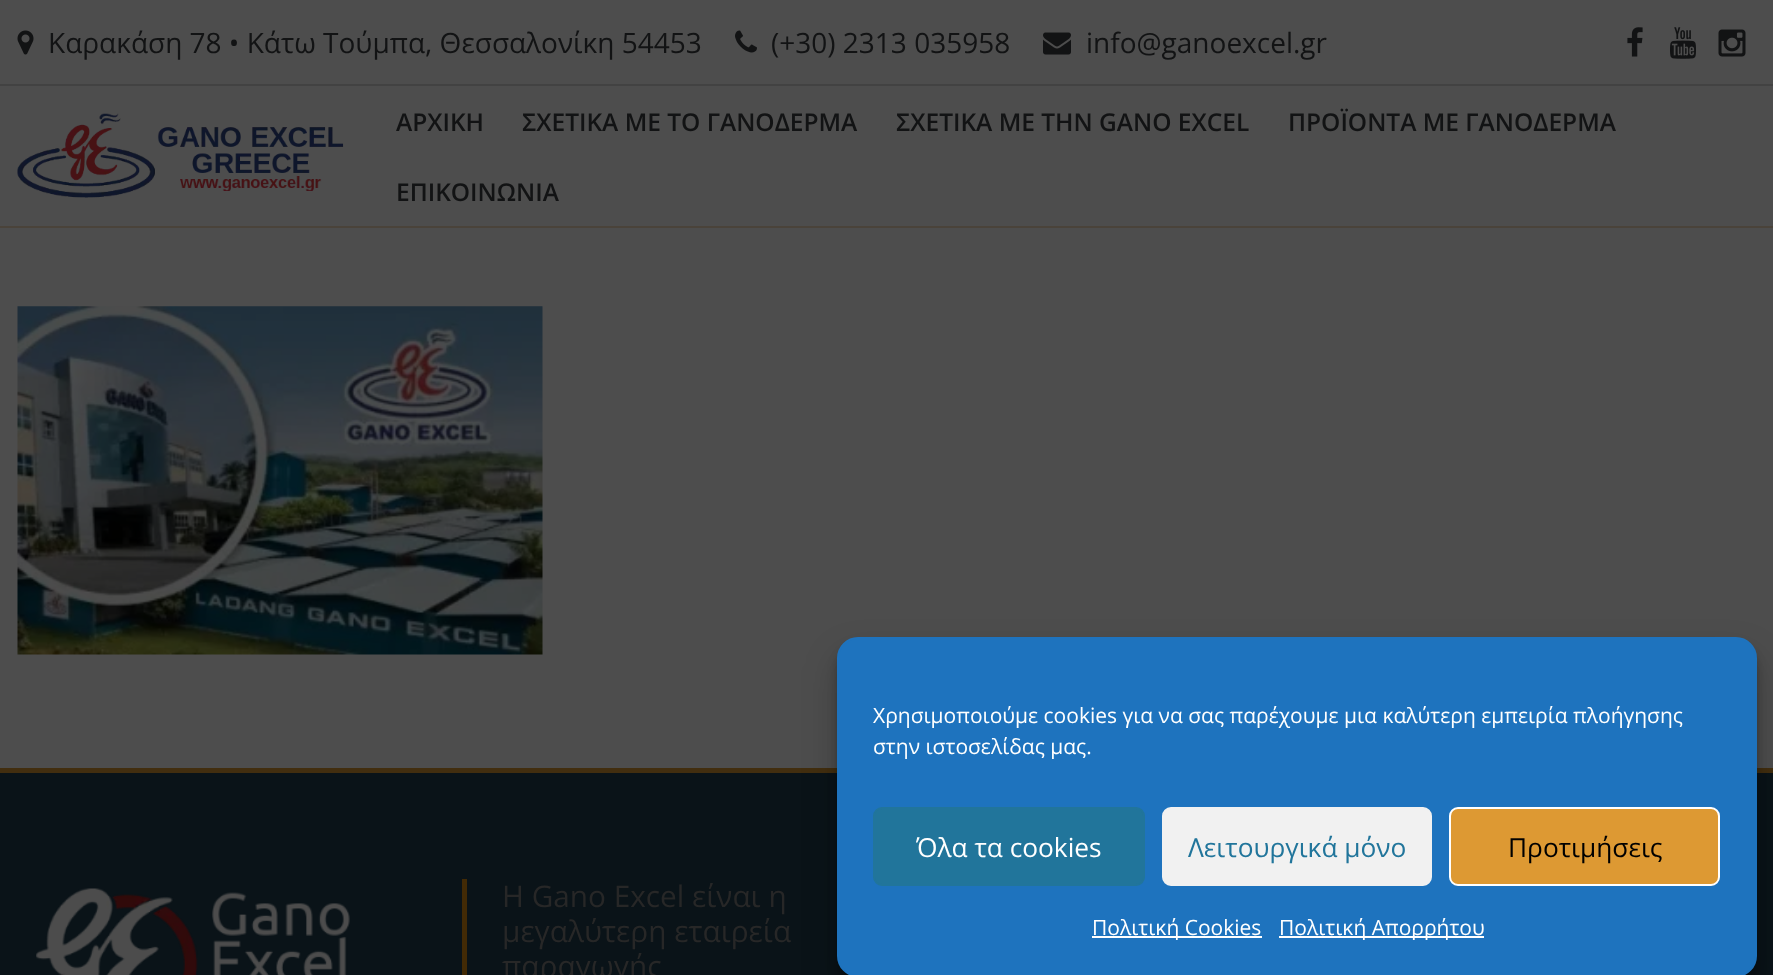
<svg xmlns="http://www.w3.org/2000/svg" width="1773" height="975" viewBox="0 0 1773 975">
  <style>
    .t1 { font: 28px Open Sans; fill: #121314; }
    .t2 { font: 600 24.5px Open Sans; fill: #121314; }
    .t3 { font: 29.75px Open Sans; fill: #272727; }
    .t4 { font: 21px Open Sans; fill: #fff; }
    .t5 { font: 26.25px Open Sans; fill: #fff; }
    .t6 { font: 26.25px Open Sans; fill: #21759b; }
    .t7 { font: 26.25px Open Sans; fill: #000; }
  </style>
  <rect width="100%" height="100%" fill="#4d4d4d"/>
  <rect x="0" y="84" width="1773" height="2" fill="#424242"/>
  <image x="17" y="30" width="17" height="25" href="images/1.png"/>
  <text x="48" y="53" class="t1">Καρακάση 78 • Κάτω Τούμπα, Θεσσαλονίκη 54453</text>
  <image x="735" y="30" width="22" height="23" href="images/2.png"/>
  <text x="771" y="53" class="t1">(+30) 2313 035958</text>
  <image x="1043" y="32" width="28" height="23" href="images/3.png"/>
  <text x="1086" y="53" class="t1">info@ganoexcel.gr</text>
  <image x="1627" y="27" width="16" height="30" href="images/4.png"/>
  <image x="1670" y="27" width="26" height="32" href="images/5.png"/>
  <image x="1718" y="29" width="28" height="28" href="images/6.png"/>
  <rect x="0" y="226" width="1773" height="2" fill="#4a433a"/>
  <image x="17" y="113" width="327" height="85" href="images/7.png"/>
  <text x="396" y="131" class="t2">ΑΡΧΙΚΗ</text>
  <text x="522" y="131" class="t2">ΣΧΕΤΙΚΑ ΜΕ ΤΟ ΓΑΝΟΔΕΡΜΑ</text>
  <text x="896" y="131" class="t2">ΣΧΕΤΙΚΑ ΜΕ ΤΗN GANO EXCEL</text>
  <text x="1288" y="131" class="t2">ΠΡΟΪΟΝΤΑ ΜΕ ΓΑΝΟΔΕΡΜΑ</text>
  <text x="396" y="201" class="t2">ΕΠΙΚΟΙΝΩΝΙΑ</text>
  <image x="17" y="306" width="526" height="349" href="images/8.png"/>
  <rect x="0" y="773" width="1773" height="202" fill="#0a1318"/>
  <rect x="0" y="768" width="1773" height="5" fill="#422e0f"/>
  <image x="36" y="888" width="314" height="87" href="images/9.png"/>
  <rect x="462" y="879" width="5" height="96" fill="#422a05"/>
  <text x="502" y="907" class="t3">Η Gano Excel είναι η</text>
  <text x="502" y="942" class="t3">μεγαλύτερη εταιρεία</text>
  <text x="502" y="977" class="t3">παραγωγής</text>
  <rect x="837" y="648" width="920" height="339" rx="21" fill="#0000003b" filter="blur(5px)"/>
  <rect x="837" y="655" width="920" height="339" rx="21" fill="#00000030" filter="blur(17.5px)"/>
  <rect x="838" y="638" width="918" height="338" rx="20" fill="#1e73be" stroke="#1e73be" stroke-width="2"/>
  <text x="873" y="723" class="t4">Χρησιμοποιούμε cookies για να σας παρέχουμε μια καλύτερη εμπειρία πλοήγησης</text>
  <text x="873" y="754" class="t4">στην ιστοσελίδας μας.</text>
  <rect x="874" y="808" width="270" height="77" rx="8" fill="#21759b" stroke="#21759b" stroke-width="2"/>
  <text x="916" y="857" class="t5">Όλα τα cookies</text>
  <rect x="1163" y="808" width="268" height="77" rx="8" fill="#f1f1f1" stroke="#f1f1f1" stroke-width="2"/>
  <text x="1188" y="857" class="t6">Λειτουργικά μόνο</text>
  <rect x="1450" y="808" width="269" height="77" rx="8" fill="#d93" stroke="#fff" stroke-width="2"/>
  <text x="1508" y="857" class="t7">Προτιμήσεις</text>
  <rect x="1092" y="936" width="170" height="2" fill="#fff"/>
  <text x="1092" y="935" class="t4">Πολιτική Cookies</text>
  <rect x="1279" y="936" width="205" height="2" fill="#fff"/>
  <text x="1279" y="935" class="t4">Πολιτική Απορρήτου</text>
</svg>
